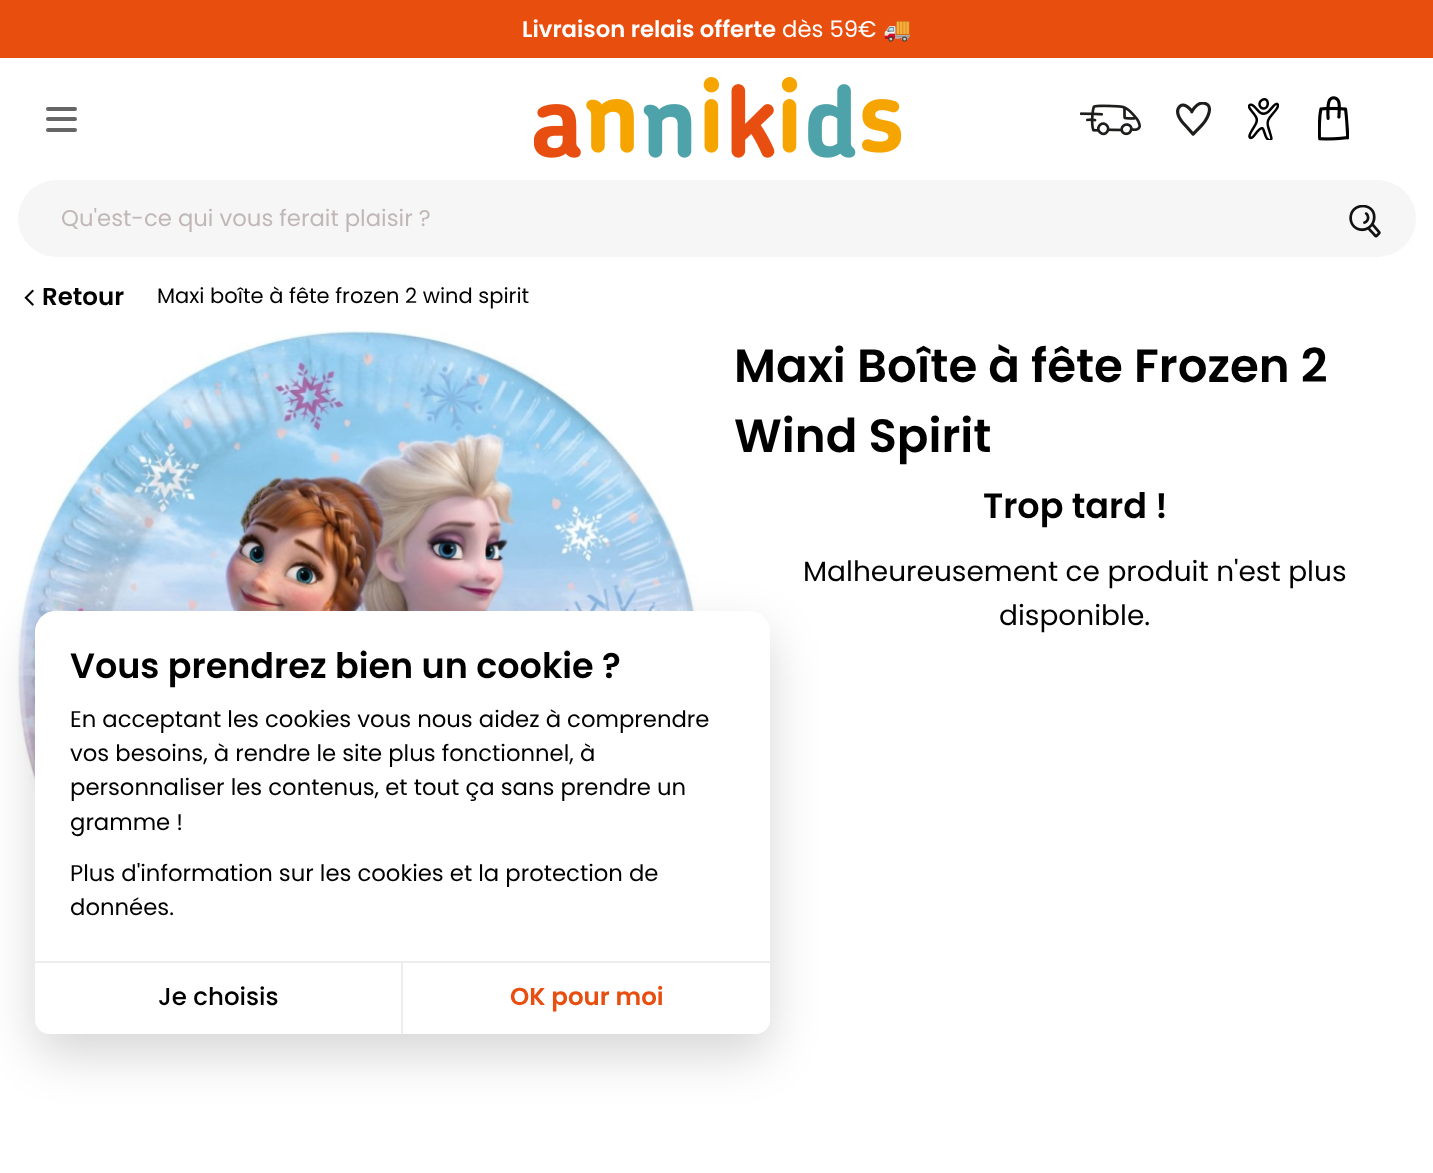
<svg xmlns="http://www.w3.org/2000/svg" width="1433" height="1173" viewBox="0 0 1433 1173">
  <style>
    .t1 { font: 600 22.75px Poppins; fill: #fff; }
    .t2 { font: 22.75px Poppins; fill: #fff; }
    .t3 { font: 22.75px Noto Color Emoji; fill: #fff; }
    .t4 { font: 22.75px Poppins; fill: #c1b7b7; }
    .t5 { font: 600 24.5px Poppins; fill: #000; }
    .t6 { font: 21px Poppins; fill: #000; }
    .t7 { font: 600 46.7px Poppins; fill: #000; }
    .t8 { font: 600 35px Poppins; fill: #000; }
    .t9 { font: 28px Poppins; fill: #000; }
    .t10 { font: 22.75px Poppins; fill: #000; }
    .t11 { font: 500 24.5px Poppins; fill: #000; }
    .t12 { font: 600 24.5px Poppins; fill: #e74e0f; }
  </style>
  <rect width="100%" height="100%" fill="#fff"/>
  <rect x="0" y="0" width="1433" height="58" fill="#e84e0e"/>
  <text x="522" y="37" class="t1">Livraison relais offerte</text>
  <text x="782" y="37" class="t2">dès 59€</text>
  <text x="883" y="37" class="t3">🚚</text>
  <rect x="46" y="107" width="31" height="4" rx="2" fill="#666"/>
  <rect x="46" y="117" width="31" height="4" rx="2" fill="#666"/>
  <rect x="46" y="128" width="31" height="4" rx="2" fill="#666"/>
  <image x="534" y="77" width="367" height="81" href="images/1.png"/>
  <image x="1080" y="104" width="61" height="32" href="images/2.png"/>
  <image x="1176" y="102" width="35" height="34" href="images/3.png"/>
  <image x="1248" y="98" width="31" height="42" href="images/4.png"/>
  <image x="1318" y="96" width="31" height="45" href="images/5.png"/>
  <rect x="18" y="180" width="1398" height="77" rx="38.5" fill="#f6f6f6"/>
  <text x="61" y="226" class="t4">Qu'est-ce qui vous ferait plaisir ?</text>
  <image x="1349" y="205" width="32" height="33" href="images/6.png"/>
  <image x="24" y="289" width="10" height="17" href="images/7.png"/>
  <text x="42" y="305" class="t5">Retour</text>
  <text x="157" y="303" class="t6">Maxi boîte à fête frozen 2 wind spirit</text>
  <image x="17" y="330" width="682" height="684" href="images/8.png"/>
  <text x="734" y="382" class="t7">Maxi Boîte à fête Frozen 2</text>
  <text x="734" y="452" class="t7">Wind Spirit</text>
  <text x="983" y="518" class="t8">Trop tard !</text>
  <text x="803" y="581" class="t9">Malheureusement ce produit n'est plus</text>
  <text x="999" y="625" class="t9">disponible.</text>
  <rect x="35" y="632" width="735" height="423" rx="21" fill="#00000029" filter="blur(24.5px)"/>
  <rect x="35" y="611" width="735" height="423" rx="21" fill="#fff"/>
  <rect x="35" y="611" width="735" height="350" rx="21" fill="#fff"/>
  <text x="70" y="678" class="t8">Vous prendrez bien un cookie ?</text>
  <text x="70" y="727" class="t10">En acceptant les cookies vous nous aidez à comprendre</text>
  <text x="70" y="761" class="t10">vos besoins, à rendre le site plus fonctionnel, à</text>
  <text x="70" y="795" class="t10">personnaliser les contenus, et tout ça sans prendre un</text>
  <text x="70" y="830" class="t10">gramme !</text>
  <text x="70" y="881" class="t10">Plus d'information sur les cookies et la protection de</text>
  <text x="70" y="915" class="t10">données.</text>
  <rect x="35" y="961" width="735" height="2" fill="#ededed"/>
  <path d="M35 963H403V1034H49C41.5 1034 35 1027.5 35 1020Z" fill="#fff"/>
  <rect x="401" y="963" width="2" height="71" fill="#ededed"/>
  <text x="158" y="1005" class="t11">Je choisis</text>
  <path d="M403 963H770V1020C770 1027.5 763.5 1034 756 1034H403Z" fill="#fff"/>
  <text x="510" y="1005" class="t12">OK pour moi</text>
</svg>
